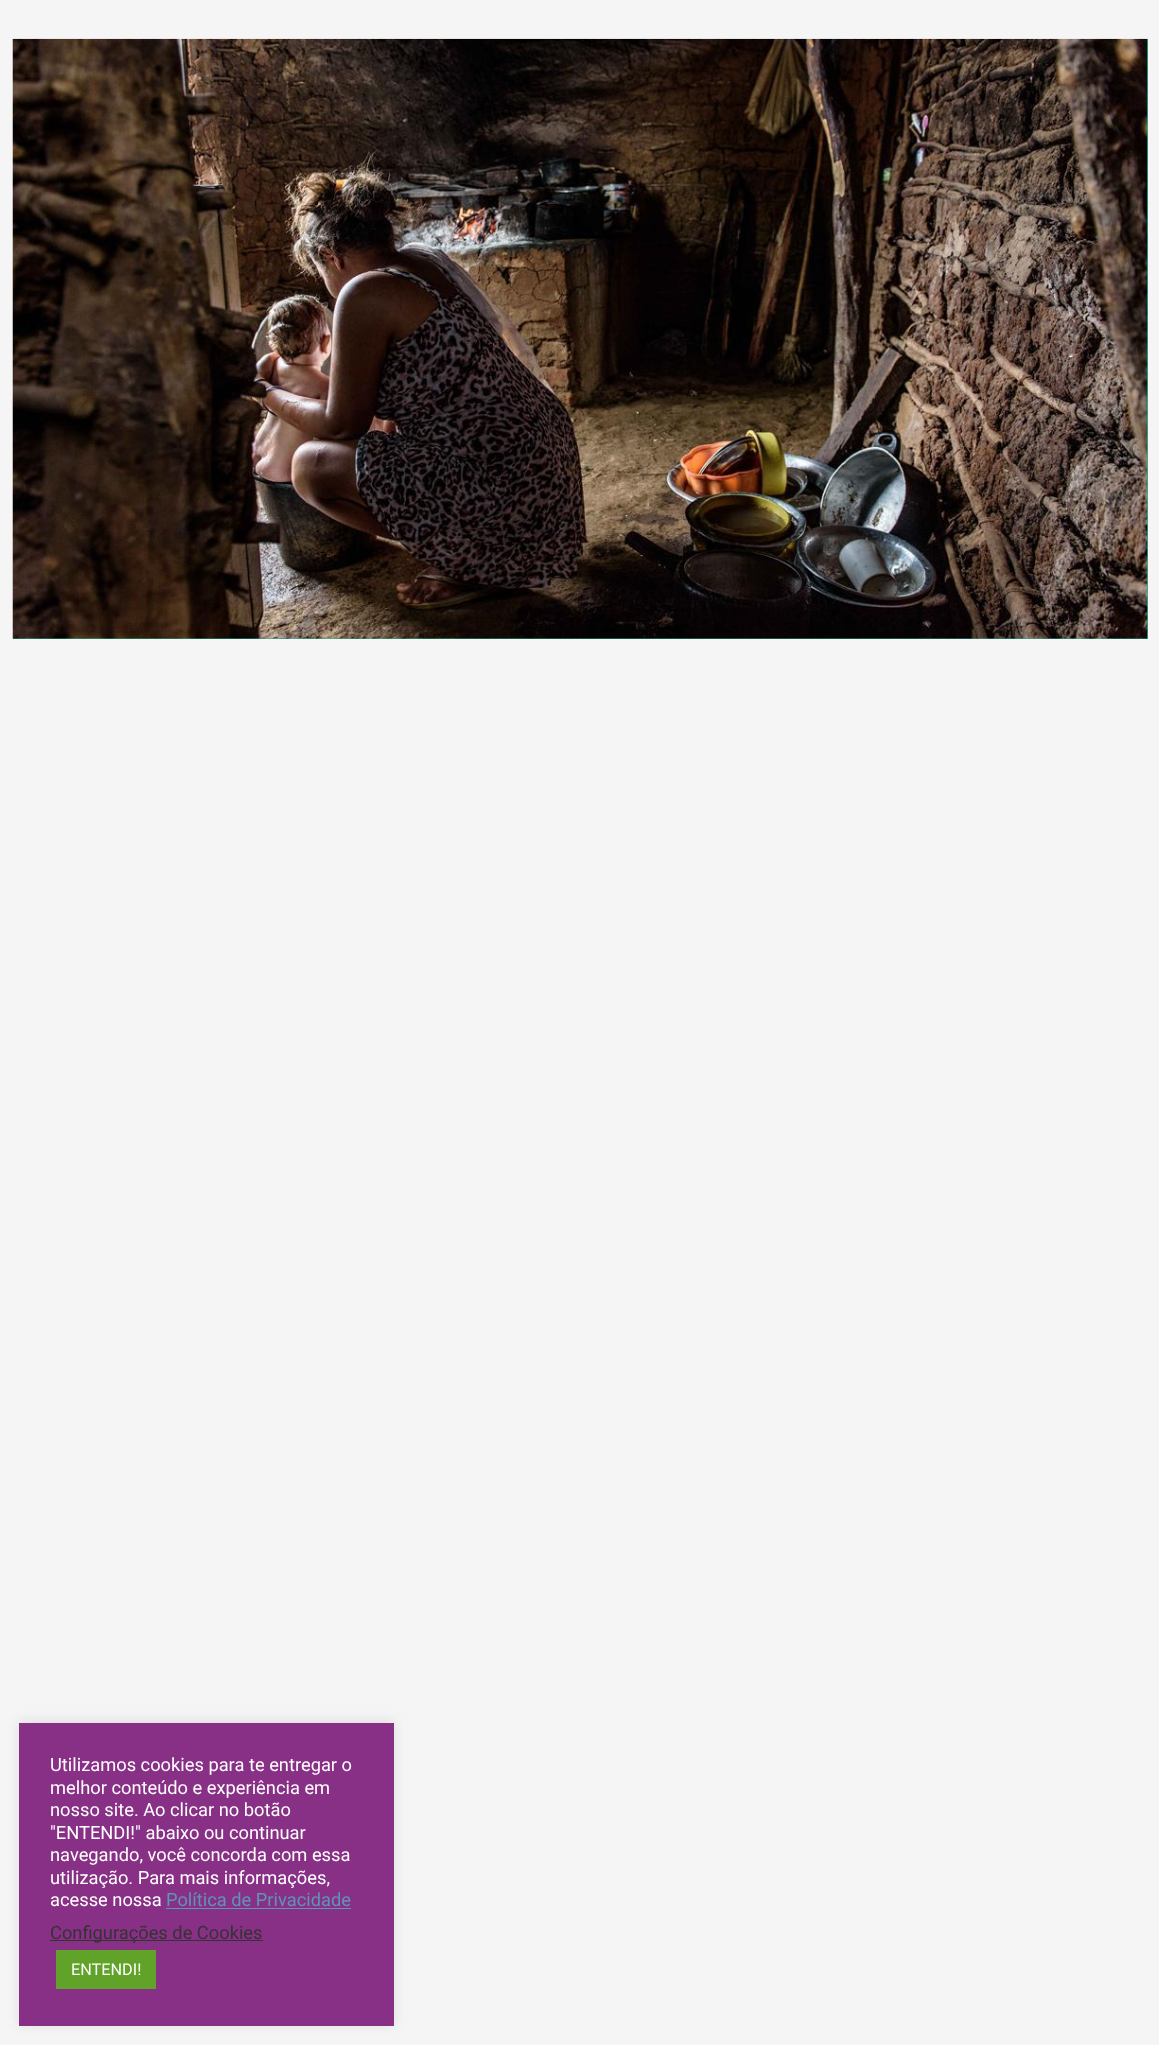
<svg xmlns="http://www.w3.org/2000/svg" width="1159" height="2045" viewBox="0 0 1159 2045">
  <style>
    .t1 { font: 18.3px Roboto; fill: #fff; }
    .t2 { font: 18.3px Roboto; fill: #5e95b6; }
    .t3 { font: 18.3px Roboto; fill: #333; }
    .t4 { font: 16.25px Roboto; fill: #fff; }
  </style>
  <rect width="100%" height="100%" fill="#f5f5f5"/>
  <rect x="13" y="39" width="1135" height="600" fill="#1abc9c"/>
  <image x="12" y="38" width="1136" height="601" href="images/1.png"/>
  <rect x="19" y="1721" width="375" height="304" fill="#acabab4d" filter="blur(6px)"/>
  <rect x="19" y="1723" width="375" height="303" fill="#883085"/>
  <text x="50" y="1771" class="t1">Utilizamos cookies para te entregar o</text>
  <text x="50" y="1794" class="t1">melhor conteúdo e experiência em</text>
  <text x="50" y="1816" class="t1">nosso site. Ao clicar no botão</text>
  <text x="50" y="1839" class="t1">"ENTENDI!" abaixo ou continuar</text>
  <text x="50" y="1861" class="t1">navegando, você concorda com essa</text>
  <text x="50" y="1884" class="t1">utilização. Para mais informações,</text>
  <text x="50" y="1906" class="t1">acesse nossa</text>
  <text x="166" y="1906" class="t2">Política de Privacidade</text>
  <rect x="166" y="1908" width="185" height="1" fill="#5e95b6"/>
  <rect x="50" y="1940" width="213" height="1" fill="#333"/>
  <text x="50" y="1939" class="t3">Configurações de Cookies</text>
  <rect x="56" y="1950" width="100" height="39" fill="#61a229"/>
  <text x="71" y="1975" class="t4">ENTENDI!</text>
</svg>
